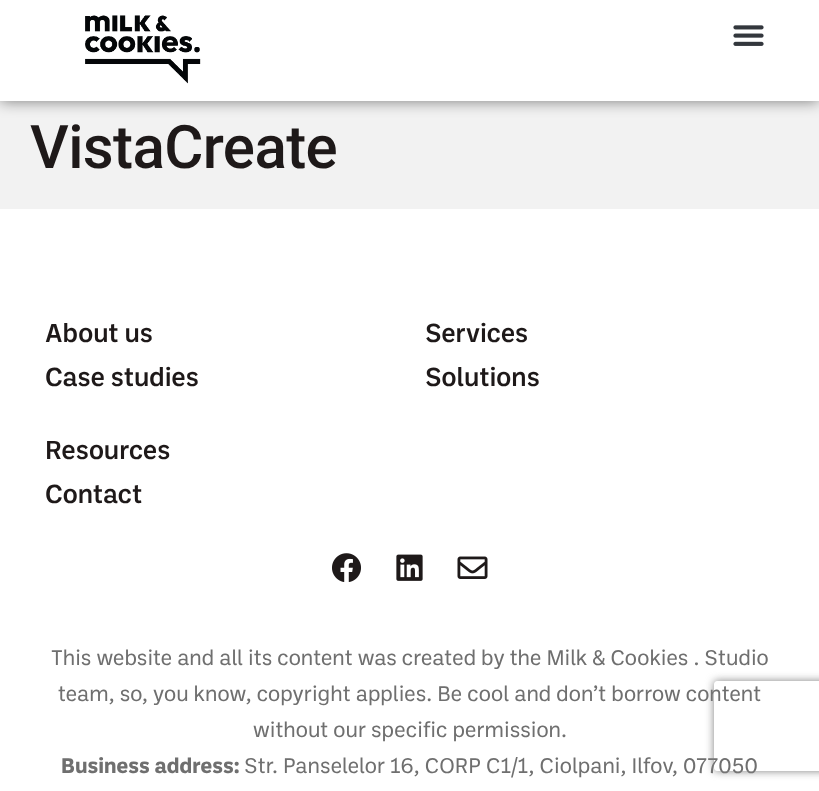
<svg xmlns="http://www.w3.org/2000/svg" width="819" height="791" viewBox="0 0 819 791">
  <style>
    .t1 { font: 500 60px Roboto; letter-spacing: -0.6px; fill: #1e1919; }
    .t2 { font: 500 26.5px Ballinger; fill: #1e1919; }
    .t3 { font: 21.6px Ballinger; fill: #6f6f6f; }
    .t4 { font: bold 21.6px Ballinger; fill: #6f6f6f; }
  </style>
  <defs>
    <clipPath id="clip1"><path d="M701 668H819V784H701ZM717 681H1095C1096.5 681 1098 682.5 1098 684V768C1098 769.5 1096.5 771 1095 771H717C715.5 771 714 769.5 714 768V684C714 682.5 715.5 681 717 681Z" clip-rule="evenodd"/></clipPath>
  </defs>
  <rect width="100%" height="100%" fill="#f2f2f2"/>
  <rect x="0" y="0" width="819" height="101" fill="#00000080" filter="blur(7.5px)"/>
  <rect x="0" y="0" width="819" height="101" fill="#fff"/>
  <image x="85" y="15" width="116" height="69" href="images/1.png"/>
  <image x="733" y="25" width="31" height="21" href="images/2.png"/>
  <text x="30" y="168" class="t1">VistaCreate</text>
  <rect x="0" y="209" width="819" height="582" fill="#fff"/>
  <text x="45" y="342" class="t2">About us</text>
  <text x="45" y="386" class="t2">Case studies</text>
  <text x="425" y="342" class="t2">Services</text>
  <text x="425" y="386" class="t2">Solutions</text>
  <text x="45" y="459" class="t2">Resources</text>
  <text x="45" y="503" class="t2">Contact</text>
  <image x="332" y="553" width="29" height="29" href="images/3.png"/>
  <image x="396" y="554" width="27" height="27" href="images/4.png"/>
  <image x="457" y="556" width="31" height="23" href="images/5.png"/>
  <text x="51" y="665" class="t3">This website and all its content was created by the Milk &amp; Cookies . Studio</text>
  <text x="58" y="701" class="t3">team, so, you know, copyright applies. Be cool and don’t borrow content</text>
  <text x="253" y="737" class="t3">without our specific permission.</text>
  <text x="61" y="773" class="t4">Business address:</text>
  <text x="244" y="773" class="t3">Str. Panselelor 16, CORP C1/1, Ciolpani, Ilfov, 077050</text>
  <g clip-path="url(#clip1)">
    <rect x="714" y="681" width="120" height="90" rx="3" fill="#808080" filter="blur(4px)"/>
  </g>
</svg>
